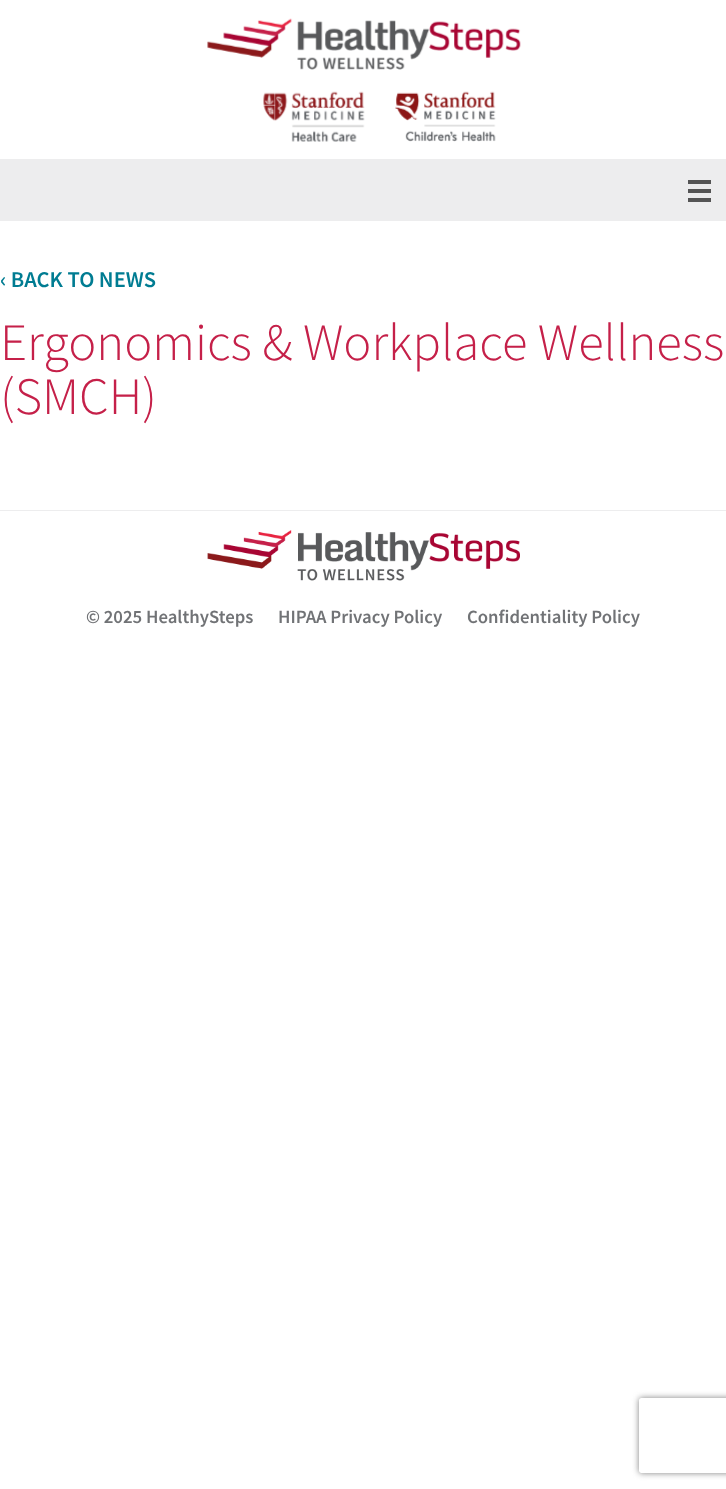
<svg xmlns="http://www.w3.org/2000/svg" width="726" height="1489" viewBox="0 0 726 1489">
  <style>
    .t1 { font: 600 22.5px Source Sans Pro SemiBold; fill: #007c92; }
    .t2 { font: 300 52.5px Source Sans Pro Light; fill: #c52049; }
    .t3 { font: 600 18.75px Source Sans Pro SemiBold; fill: #717376; }
  </style>
  <defs>
    <clipPath id="clip1"><path d="M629 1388H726V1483H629ZM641.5 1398H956.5C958 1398 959 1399 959 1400.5V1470.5C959 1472 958 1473 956.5 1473H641.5C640 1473 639 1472 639 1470.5V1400.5C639 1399 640 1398 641.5 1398Z" clip-rule="evenodd"/></clipPath>
  </defs>
  <rect width="100%" height="100%" fill="#fff"/>
  <image x="207" y="18" width="314" height="52" href="images/1.png"/>
  <image x="263" y="91" width="102" height="51" href="images/2.png"/>
  <image x="395" y="91" width="101" height="51" href="images/3.png"/>
  <rect x="0" y="159" width="726" height="62" fill="#ededee"/>
  <rect x="688" y="180" width="23" height="4" fill="#555"/>
  <rect x="688" y="189" width="23" height="4" fill="#555"/>
  <rect x="688" y="198" width="23" height="4" fill="#555"/>
  <text x="0" y="287" class="t1">‹ BACK TO NEWS</text>
  <text x="0" y="360" class="t2">Ergonomics &amp; Workplace Wellness</text>
  <text x="0" y="414" class="t2">(SMCH)</text>
  <rect x="0" y="510" width="726" height="1" fill="#ededee"/>
  <image x="207" y="530" width="313" height="51" href="images/4.png"/>
  <text x="86" y="623" class="t3">© 2025 HealthySteps</text>
  <text x="278" y="623" class="t3">HIPAA Privacy Policy</text>
  <text x="467" y="623" class="t3">Confidentiality Policy</text>
  <g clip-path="url(#clip1)">
    <rect x="639" y="1398" width="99" height="75" rx="2.5" fill="#808080" filter="blur(3px)"/>
  </g>
</svg>
